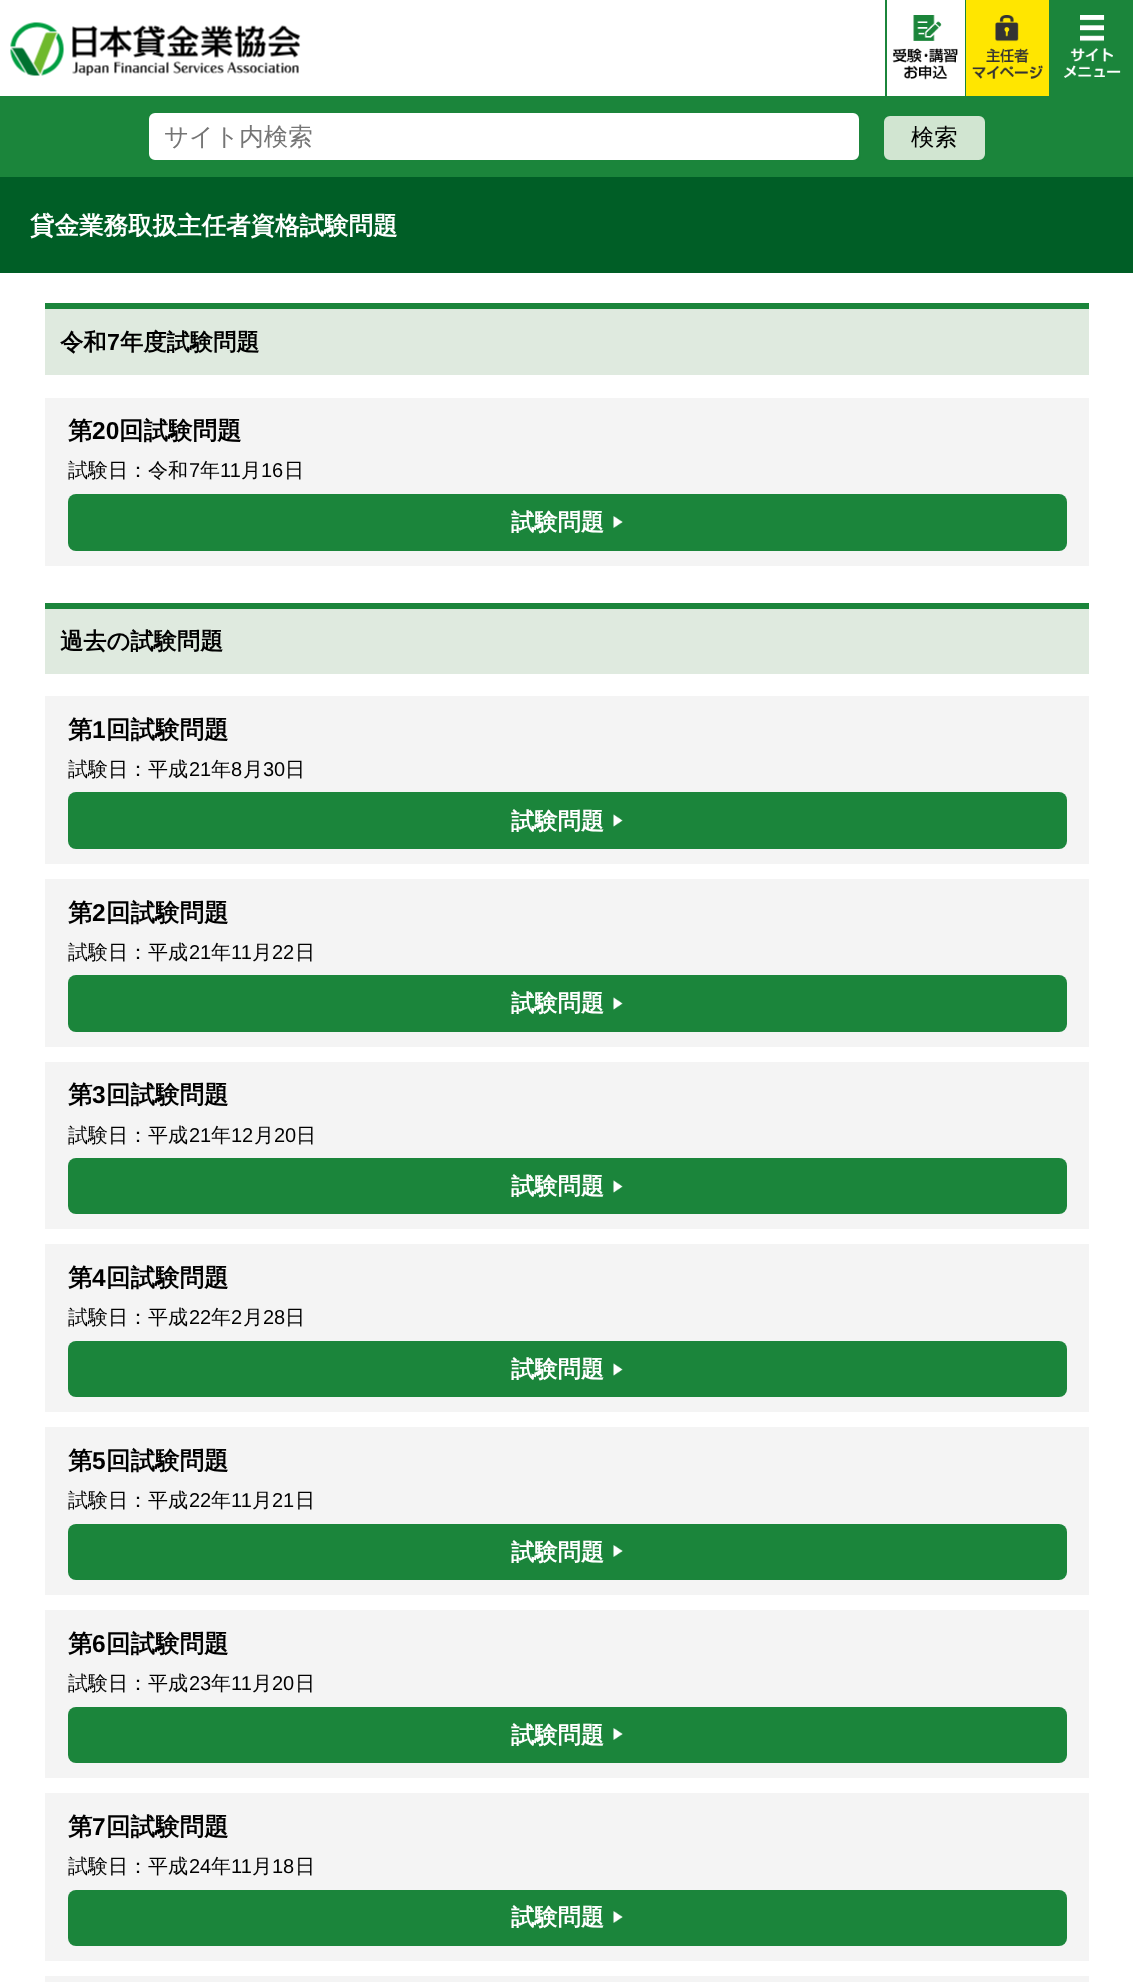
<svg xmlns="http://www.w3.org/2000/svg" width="1133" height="1982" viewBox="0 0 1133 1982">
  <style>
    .t1 { font: 500 24.5px WenQuanYi Zen Hei; fill: #757575; }
    .t2 { font: 500 23.25px WenQuanYi Zen Hei; fill: #000; }
    .t3 { font: bold 24.5px WenQuanYi Zen Hei; fill: #fff; }
    .t4 { font: bold 23.25px WenQuanYi Zen Hei; fill: #000; }
    .t5 { font: bold 23.25px Liberation Sans; fill: #000; }
    .t6 { font: bold 24.5px WenQuanYi Zen Hei; fill: #000; }
    .t7 { font: bold 24.5px Liberation Sans; fill: #000; }
    .t8 { font: 500 20px WenQuanYi Zen Hei; fill: #000; }
    .t9 { font: 20px Liberation Sans; fill: #000; }
    .t10 { font: bold 23.25px WenQuanYi Zen Hei; fill: #fff; }
  </style>
  <rect width="100%" height="100%" fill="#fff"/>
  <image x="10" y="22" width="291" height="54" href="images/1.png"/>
  <rect x="885" y="0" width="2" height="96" fill="#1b853b"/>
  <image x="892" y="15" width="66" height="65" href="images/2.png"/>
  <rect x="965" y="0" width="1" height="96" fill="#1b853b"/>
  <rect x="966" y="0" width="83" height="96" fill="#ffe600"/>
  <image x="972" y="15" width="71" height="64" href="images/3.png"/>
  <rect x="1049" y="0" width="84" height="96" fill="#1b853b"/>
  <image x="1064" y="15" width="57" height="63" href="images/4.png"/>
  <rect x="0" y="96" width="1133" height="81" fill="#1b853b"/>
  <rect x="148" y="112" width="712" height="49" rx="7" fill="#fff" stroke="#1b853b" stroke-width="2"/>
  <text x="164" y="145" class="t1">サイト内検索</text>
  <rect x="883" y="115" width="103" height="46" rx="7" fill="#d1e5d1" stroke="#1b853b" stroke-width="2"/>
  <text x="911" y="145" class="t2">検索</text>
  <rect x="0" y="177" width="1133" height="96" fill="#005e26"/>
  <text x="30" y="234" class="t3">貸金業務取扱主任者資格試験問題</text>
  <rect x="45" y="309" width="1044" height="66" fill="#dfeadf"/>
  <rect x="45" y="303" width="1044" height="6" fill="#1b853b"/>
  <text x="60" y="350" class="t4">令和</text>
  <text x="107" y="350" class="t5">7</text>
  <text x="120" y="350" class="t4">年度試験問題</text>
  <rect x="45" y="398" width="1044" height="168" fill="#f4f4f4"/>
  <text x="68" y="439" class="t6">第</text>
  <text x="92" y="439" class="t7">20</text>
  <text x="119" y="439" class="t6">回試験問題</text>
  <text x="68" y="477" class="t8">試験日：令和</text>
  <text x="189" y="477" class="t9">7</text>
  <text x="200" y="477" class="t8">年</text>
  <text x="220" y="477" class="t9">11</text>
  <text x="241" y="477" class="t8">月</text>
  <text x="261" y="477" class="t9">16</text>
  <text x="284" y="477" class="t8">日</text>
  <rect x="68" y="494" width="999" height="57" rx="8" fill="#1b853b"/>
  <text x="511" y="530" class="t10">試験問題</text>
  <image x="613" y="516" width="10" height="12" href="images/5.png"/>
  <rect x="45" y="609" width="1044" height="65" fill="#dfeadf"/>
  <rect x="45" y="603" width="1044" height="6" fill="#1b853b"/>
  <text x="60" y="649" class="t4">過去の試験問題</text>
  <rect x="45" y="696" width="1044" height="168" fill="#f4f4f4"/>
  <text x="68" y="738" class="t6">第</text>
  <text x="92" y="738" class="t7">1</text>
  <text x="106" y="738" class="t6">回試験問題</text>
  <text x="68" y="776" class="t8">試験日：平成</text>
  <text x="189" y="776" class="t9">21</text>
  <text x="211" y="776" class="t8">年</text>
  <text x="231" y="776" class="t9">8</text>
  <text x="243" y="776" class="t8">月</text>
  <text x="263" y="776" class="t9">30</text>
  <text x="285" y="776" class="t8">日</text>
  <rect x="68" y="792" width="999" height="57" rx="8" fill="#1b853b"/>
  <text x="511" y="829" class="t10">試験問題</text>
  <image x="613" y="814" width="10" height="13" href="images/6.png"/>
  <rect x="45" y="879" width="1044" height="168" fill="#f4f4f4"/>
  <text x="68" y="921" class="t6">第</text>
  <text x="92" y="921" class="t7">2</text>
  <text x="106" y="921" class="t6">回試験問題</text>
  <text x="68" y="959" class="t8">試験日：平成</text>
  <text x="189" y="959" class="t9">21</text>
  <text x="211" y="959" class="t8">年</text>
  <text x="231" y="959" class="t9">11</text>
  <text x="252" y="959" class="t8">月</text>
  <text x="272" y="959" class="t9">22</text>
  <text x="295" y="959" class="t8">日</text>
  <rect x="68" y="975" width="999" height="57" rx="8" fill="#1b853b"/>
  <text x="511" y="1011" class="t10">試験問題</text>
  <image x="613" y="997" width="10" height="13" href="images/6.png"/>
  <rect x="45" y="1062" width="1044" height="167" fill="#f4f4f4"/>
  <text x="68" y="1103" class="t6">第</text>
  <text x="92" y="1103" class="t7">3</text>
  <text x="106" y="1103" class="t6">回試験問題</text>
  <text x="68" y="1142" class="t8">試験日：平成</text>
  <text x="189" y="1142" class="t9">21</text>
  <text x="211" y="1142" class="t8">年</text>
  <text x="231" y="1142" class="t9">12</text>
  <text x="254" y="1142" class="t8">月</text>
  <text x="274" y="1142" class="t9">20</text>
  <text x="296" y="1142" class="t8">日</text>
  <rect x="68" y="1158" width="999" height="56" rx="8" fill="#1b853b"/>
  <text x="511" y="1194" class="t10">試験問題</text>
  <image x="613" y="1180" width="10" height="13" href="images/6.png"/>
  <rect x="45" y="1244" width="1044" height="168" fill="#f4f4f4"/>
  <text x="68" y="1286" class="t6">第</text>
  <text x="92" y="1286" class="t7">4</text>
  <text x="106" y="1286" class="t6">回試験問題</text>
  <text x="68" y="1324" class="t8">試験日：平成</text>
  <text x="189" y="1324" class="t9">22</text>
  <text x="211" y="1324" class="t8">年</text>
  <text x="231" y="1324" class="t9">2</text>
  <text x="243" y="1324" class="t8">月</text>
  <text x="263" y="1324" class="t9">28</text>
  <text x="285" y="1324" class="t8">日</text>
  <rect x="68" y="1341" width="999" height="56" rx="8" fill="#1b853b"/>
  <text x="511" y="1377" class="t10">試験問題</text>
  <image x="613" y="1363" width="10" height="13" href="images/6.png"/>
  <rect x="45" y="1427" width="1044" height="168" fill="#f4f4f4"/>
  <text x="68" y="1469" class="t6">第</text>
  <text x="92" y="1469" class="t7">5</text>
  <text x="106" y="1469" class="t6">回試験問題</text>
  <text x="68" y="1507" class="t8">試験日：平成</text>
  <text x="189" y="1507" class="t9">22</text>
  <text x="211" y="1507" class="t8">年</text>
  <text x="231" y="1507" class="t9">11</text>
  <text x="252" y="1507" class="t8">月</text>
  <text x="272" y="1507" class="t9">21</text>
  <text x="295" y="1507" class="t8">日</text>
  <rect x="68" y="1524" width="999" height="56" rx="8" fill="#1b853b"/>
  <text x="511" y="1560" class="t10">試験問題</text>
  <image x="613" y="1545" width="10" height="12" href="images/5.png"/>
  <rect x="45" y="1610" width="1044" height="168" fill="#f4f4f4"/>
  <text x="68" y="1652" class="t6">第</text>
  <text x="92" y="1652" class="t7">6</text>
  <text x="106" y="1652" class="t6">回試験問題</text>
  <text x="68" y="1690" class="t8">試験日：平成</text>
  <text x="189" y="1690" class="t9">23</text>
  <text x="211" y="1690" class="t8">年</text>
  <text x="231" y="1690" class="t9">11</text>
  <text x="252" y="1690" class="t8">月</text>
  <text x="272" y="1690" class="t9">20</text>
  <text x="295" y="1690" class="t8">日</text>
  <rect x="68" y="1707" width="999" height="56" rx="8" fill="#1b853b"/>
  <text x="511" y="1743" class="t10">試験問題</text>
  <image x="613" y="1728" width="10" height="12" href="images/5.png"/>
  <rect x="45" y="1793" width="1044" height="168" fill="#f4f4f4"/>
  <text x="68" y="1835" class="t6">第</text>
  <text x="92" y="1835" class="t7">7</text>
  <text x="106" y="1835" class="t6">回試験問題</text>
  <text x="68" y="1873" class="t8">試験日：平成</text>
  <text x="189" y="1873" class="t9">24</text>
  <text x="211" y="1873" class="t8">年</text>
  <text x="231" y="1873" class="t9">11</text>
  <text x="252" y="1873" class="t8">月</text>
  <text x="272" y="1873" class="t9">18</text>
  <text x="295" y="1873" class="t8">日</text>
  <rect x="68" y="1890" width="999" height="56" rx="8" fill="#1b853b"/>
  <text x="511" y="1925" class="t10">試験問題</text>
  <image x="613" y="1911" width="10" height="12" href="images/5.png"/>
  <rect x="45" y="1976" width="1044" height="6" fill="#f4f4f4"/>
</svg>
